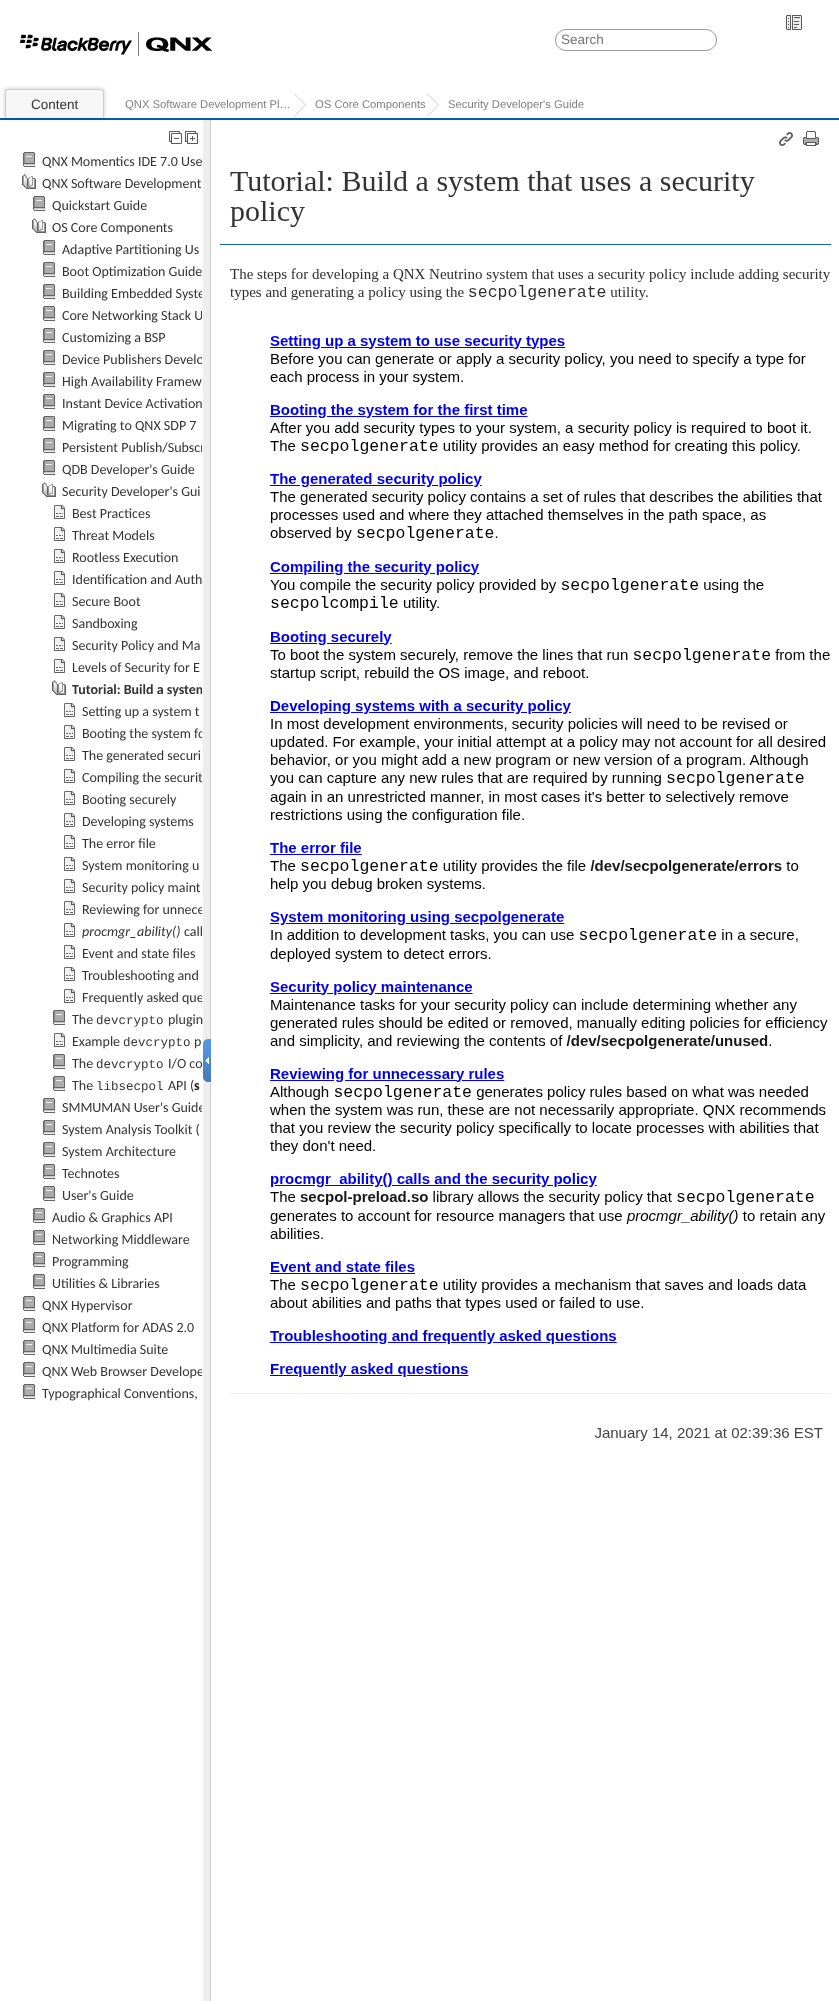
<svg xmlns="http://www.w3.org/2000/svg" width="839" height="2004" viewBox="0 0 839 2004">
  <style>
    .t1 { font: 13.5px Liberation Sans; fill: #757575; }
    .t2 { font: 13.5px Liberation Sans; fill: #333; }
    .t3 { font: 11.25px Liberation Sans; fill: #808080; }
    .t4 { font: 14px Carlito; fill: #333; }
    .t5 { font: bold 14px Carlito; fill: #333; }
    .t6 { font: italic 14px Carlito; fill: #333; }
    .t7 { font: 12.5px Liberation Mono; fill: #333; }
    .t8 { font: bold 14px Carlito; fill: #171717; }
  </style>
  <defs>
    <clipPath id="clip1"><rect x="1" y="121" width="201" height="1881"/></clipPath>
  </defs>
  <rect width="100%" height="100%" fill="#fff"/>
  <image x="786" y="15" width="16" height="15" href="images/1.png"/>
  <image x="20" y="32" width="192" height="24" href="images/2.png"/>
  <rect x="555.5" y="29.5" width="161" height="21" rx="10.5" fill="none" stroke="#999"/>
  <text x="561" y="44" class="t1">Search</text>
  <rect x="0" y="118" width="839" height="2" fill="#005cb3"/>
  <rect x="5" y="89" width="99" height="29" rx="3" fill="#00000033" filter="blur(2.5px)"/>
  <path d="M8 89H101C102.5 89 104 90.5 104 92V118H5V92C5 90.5 6.5 89 8 89Z" fill="#f6f6f6"/>
  <path d="M8 89H101C103 89 104 90 104 92V118H5V92C5 90 6 89 8 89ZM8 90H101C102 90 103 91 103 92V118H6V92C6 91 7 90 8 90Z" fill="#ccc" fill-rule="evenodd"/>
  <text x="31" y="109" class="t2">Content</text>
  <path d="M294 117V93L306 105Z" fill="#ccc"/>
  <path d="M293 117V93L305 105Z" fill="#fff"/>
  <text x="125" y="108" class="t3">QNX Software Development Pl…</text>
  <path d="M427 117V93L439 105Z" fill="#ccc"/>
  <path d="M426 117V93L438 105Z" fill="#fff"/>
  <text x="315" y="108" class="t3">OS Core Components</text>
  <text x="448" y="108" class="t3">Security Developer's Guide</text>
  <image x="169" y="131" width="13" height="13" href="images/3.png"/>
  <image x="185" y="131" width="13" height="13" href="images/4.png"/>
  <image x="23" y="152" width="12" height="15" href="images/5.png"/>
  <text x="42" y="166" class="t4">QNX Momentics IDE 7.0 Use</text>
  <image x="22" y="174" width="14" height="15" href="images/6.png"/>
  <text x="42" y="188" class="t4">QNX Software Development</text>
  <image x="33" y="196" width="12" height="15" href="images/5.png"/>
  <text x="52" y="210" class="t4">Quickstart Guide</text>
  <image x="32" y="218" width="14" height="15" href="images/6.png"/>
  <text x="52" y="232" class="t4">OS Core Components</text>
  <image x="43" y="240" width="12" height="15" href="images/5.png"/>
  <text x="62" y="254" class="t4">Adaptive Partitioning Us</text>
  <image x="43" y="262" width="12" height="15" href="images/5.png"/>
  <text x="62" y="276" class="t4">Boot Optimization Guide</text>
  <image x="43" y="284" width="12" height="15" href="images/5.png"/>
  <g clip-path="url(#clip1)">
    <text x="62" y="298" class="t4">Building Embedded Syste</text>
  </g>
  <image x="43" y="306" width="12" height="15" href="images/5.png"/>
  <g clip-path="url(#clip1)">
    <text x="62" y="320" class="t4">Core Networking Stack U</text>
  </g>
  <image x="43" y="328" width="12" height="15" href="images/5.png"/>
  <text x="62" y="342" class="t4">Customizing a BSP</text>
  <image x="43" y="350" width="12" height="15" href="images/5.png"/>
  <g clip-path="url(#clip1)">
    <text x="62" y="364" class="t4">Device Publishers Develo</text>
  </g>
  <image x="43" y="372" width="12" height="15" href="images/5.png"/>
  <text x="62" y="386" class="t4">High Availability Framew</text>
  <image x="43" y="394" width="12" height="15" href="images/5.png"/>
  <text x="62" y="408" class="t4">Instant Device Activation</text>
  <image x="43" y="416" width="12" height="15" href="images/5.png"/>
  <text x="62" y="430" class="t4">Migrating to QNX SDP 7</text>
  <image x="43" y="438" width="12" height="15" href="images/5.png"/>
  <g clip-path="url(#clip1)">
    <text x="62" y="452" class="t4">Persistent Publish/Subscr</text>
  </g>
  <image x="43" y="460" width="12" height="15" href="images/5.png"/>
  <text x="62" y="474" class="t4">QDB Developer's Guide</text>
  <image x="42" y="482" width="14" height="15" href="images/6.png"/>
  <text x="62" y="496" class="t4">Security Developer's Gui</text>
  <image x="54" y="505" width="11" height="14" href="images/7.png"/>
  <text x="72" y="518" class="t4">Best Practices</text>
  <image x="54" y="527" width="11" height="14" href="images/7.png"/>
  <text x="72" y="540" class="t4">Threat Models</text>
  <image x="54" y="549" width="11" height="14" href="images/7.png"/>
  <text x="72" y="562" class="t4">Rootless Execution</text>
  <image x="54" y="571" width="11" height="14" href="images/7.png"/>
  <text x="72" y="584" class="t4">Identification and Auth</text>
  <image x="54" y="593" width="11" height="14" href="images/7.png"/>
  <text x="72" y="606" class="t4">Secure Boot</text>
  <image x="54" y="615" width="11" height="14" href="images/7.png"/>
  <text x="72" y="628" class="t4">Sandboxing</text>
  <image x="54" y="637" width="11" height="14" href="images/7.png"/>
  <text x="72" y="650" class="t4">Security Policy and Ma</text>
  <image x="54" y="659" width="11" height="14" href="images/7.png"/>
  <text x="72" y="672" class="t4">Levels of Security for E</text>
  <image x="52" y="680" width="14" height="15" href="images/6.png"/>
  <g clip-path="url(#clip1)">
    <text x="72" y="694" class="t5">Tutorial: Build a system</text>
  </g>
  <image x="64" y="703" width="11" height="14" href="images/7.png"/>
  <text x="82" y="716" class="t4">Setting up a system t</text>
  <image x="64" y="725" width="11" height="14" href="images/7.png"/>
  <g clip-path="url(#clip1)">
    <text x="82" y="738" class="t4">Booting the system fo</text>
  </g>
  <image x="64" y="747" width="11" height="14" href="images/7.png"/>
  <text x="82" y="760" class="t4">The generated securi</text>
  <image x="64" y="769" width="11" height="14" href="images/7.png"/>
  <g clip-path="url(#clip1)">
    <text x="82" y="782" class="t4">Compiling the securit</text>
  </g>
  <image x="64" y="791" width="11" height="14" href="images/7.png"/>
  <text x="82" y="804" class="t4">Booting securely</text>
  <image x="64" y="813" width="11" height="14" href="images/7.png"/>
  <text x="82" y="826" class="t4">Developing systems</text>
  <image x="64" y="835" width="11" height="14" href="images/7.png"/>
  <text x="82" y="848" class="t4">The error file</text>
  <image x="64" y="857" width="11" height="14" href="images/7.png"/>
  <text x="82" y="870" class="t4">System monitoring u</text>
  <image x="64" y="879" width="11" height="14" href="images/7.png"/>
  <text x="82" y="892" class="t4">Security policy maint</text>
  <image x="64" y="901" width="11" height="14" href="images/7.png"/>
  <g clip-path="url(#clip1)">
    <text x="82" y="914" class="t4">Reviewing for unnece</text>
  </g>
  <image x="64" y="923" width="11" height="14" href="images/7.png"/>
  <text x="82" y="936" class="t6">procmgr_ability()</text>
  <text x="184" y="936" class="t4">call</text>
  <image x="64" y="945" width="11" height="14" href="images/7.png"/>
  <text x="82" y="958" class="t4">Event and state files</text>
  <image x="64" y="967" width="11" height="14" href="images/7.png"/>
  <text x="82" y="980" class="t4">Troubleshooting and</text>
  <image x="64" y="989" width="11" height="14" href="images/7.png"/>
  <g clip-path="url(#clip1)">
    <text x="82" y="1002" class="t4">Frequently asked que</text>
  </g>
  <image x="53" y="1010" width="12" height="15" href="images/5.png"/>
  <text x="72" y="1024" class="t4">The</text>
  <text x="96" y="1024" class="t7">devcrypto</text>
  <text x="168" y="1024" class="t4">plugin</text>
  <image x="54" y="1033" width="11" height="14" href="images/7.png"/>
  <text x="72" y="1046" class="t4">Example</text>
  <text x="123" y="1046" class="t7">devcrypto</text>
  <text x="194" y="1046" class="t4">p</text>
  <image x="53" y="1054" width="12" height="15" href="images/5.png"/>
  <text x="72" y="1068" class="t4">The</text>
  <text x="96" y="1068" class="t7">devcrypto</text>
  <text x="168" y="1068" class="t4">I/O co</text>
  <image x="53" y="1076" width="12" height="15" href="images/5.png"/>
  <text x="72" y="1090" class="t4">The</text>
  <text x="96" y="1090" class="t7">libsecpol</text>
  <text x="168" y="1090" class="t4">API (</text>
  <text x="194" y="1090" class="t8">s</text>
  <image x="43" y="1098" width="12" height="15" href="images/5.png"/>
  <g clip-path="url(#clip1)">
    <text x="62" y="1112" class="t4">SMMUMAN User's Guide</text>
  </g>
  <image x="43" y="1120" width="12" height="15" href="images/5.png"/>
  <text x="62" y="1134" class="t4">System Analysis Toolkit (</text>
  <image x="43" y="1142" width="12" height="15" href="images/5.png"/>
  <text x="62" y="1156" class="t4">System Architecture</text>
  <image x="43" y="1164" width="12" height="15" href="images/5.png"/>
  <text x="62" y="1178" class="t4">Technotes</text>
  <image x="43" y="1186" width="12" height="15" href="images/5.png"/>
  <text x="62" y="1200" class="t4">User's Guide</text>
  <image x="33" y="1208" width="12" height="15" href="images/5.png"/>
  <text x="52" y="1222" class="t4">Audio &amp; Graphics API</text>
  <image x="33" y="1230" width="12" height="15" href="images/5.png"/>
  <text x="52" y="1244" class="t4">Networking Middleware</text>
  <image x="33" y="1252" width="12" height="15" href="images/5.png"/>
  <text x="52" y="1266" class="t4">Programming</text>
  <image x="33" y="1274" width="12" height="15" href="images/5.png"/>
  <text x="52" y="1288" class="t4">Utilities &amp; Libraries</text>
  <image x="23" y="1296" width="12" height="15" href="images/5.png"/>
  <text x="42" y="1310" class="t4">QNX Hypervisor</text>
  <image x="23" y="1318" width="12" height="15" href="images/5.png"/>
  <text x="42" y="1332" class="t4">QNX Platform for ADAS 2.0</text>
  <image x="23" y="1340" width="12" height="15" href="images/5.png"/>
  <text x="42" y="1354" class="t4">QNX Multimedia Suite</text>
  <image x="23" y="1362" width="12" height="15" href="images/5.png"/>
  <g clip-path="url(#clip1)">
    <text x="42" y="1376" class="t4">QNX Web Browser Develope</text>
  </g>
  <image x="23" y="1384" width="12" height="15" href="images/5.png"/>
  <text x="42" y="1398" class="t4">Typographical Conventions,</text>
  <rect x="203" y="120" width="7" height="1881" fill="#eee"/>
  <rect x="210" y="120" width="1" height="1881" fill="#ccc"/>
  <image x="203" y="1039" width="8" height="44" href="images/8.png"/>
  <image x="220" y="131" width="611" height="1310" href="images/9.png"/>
</svg>
